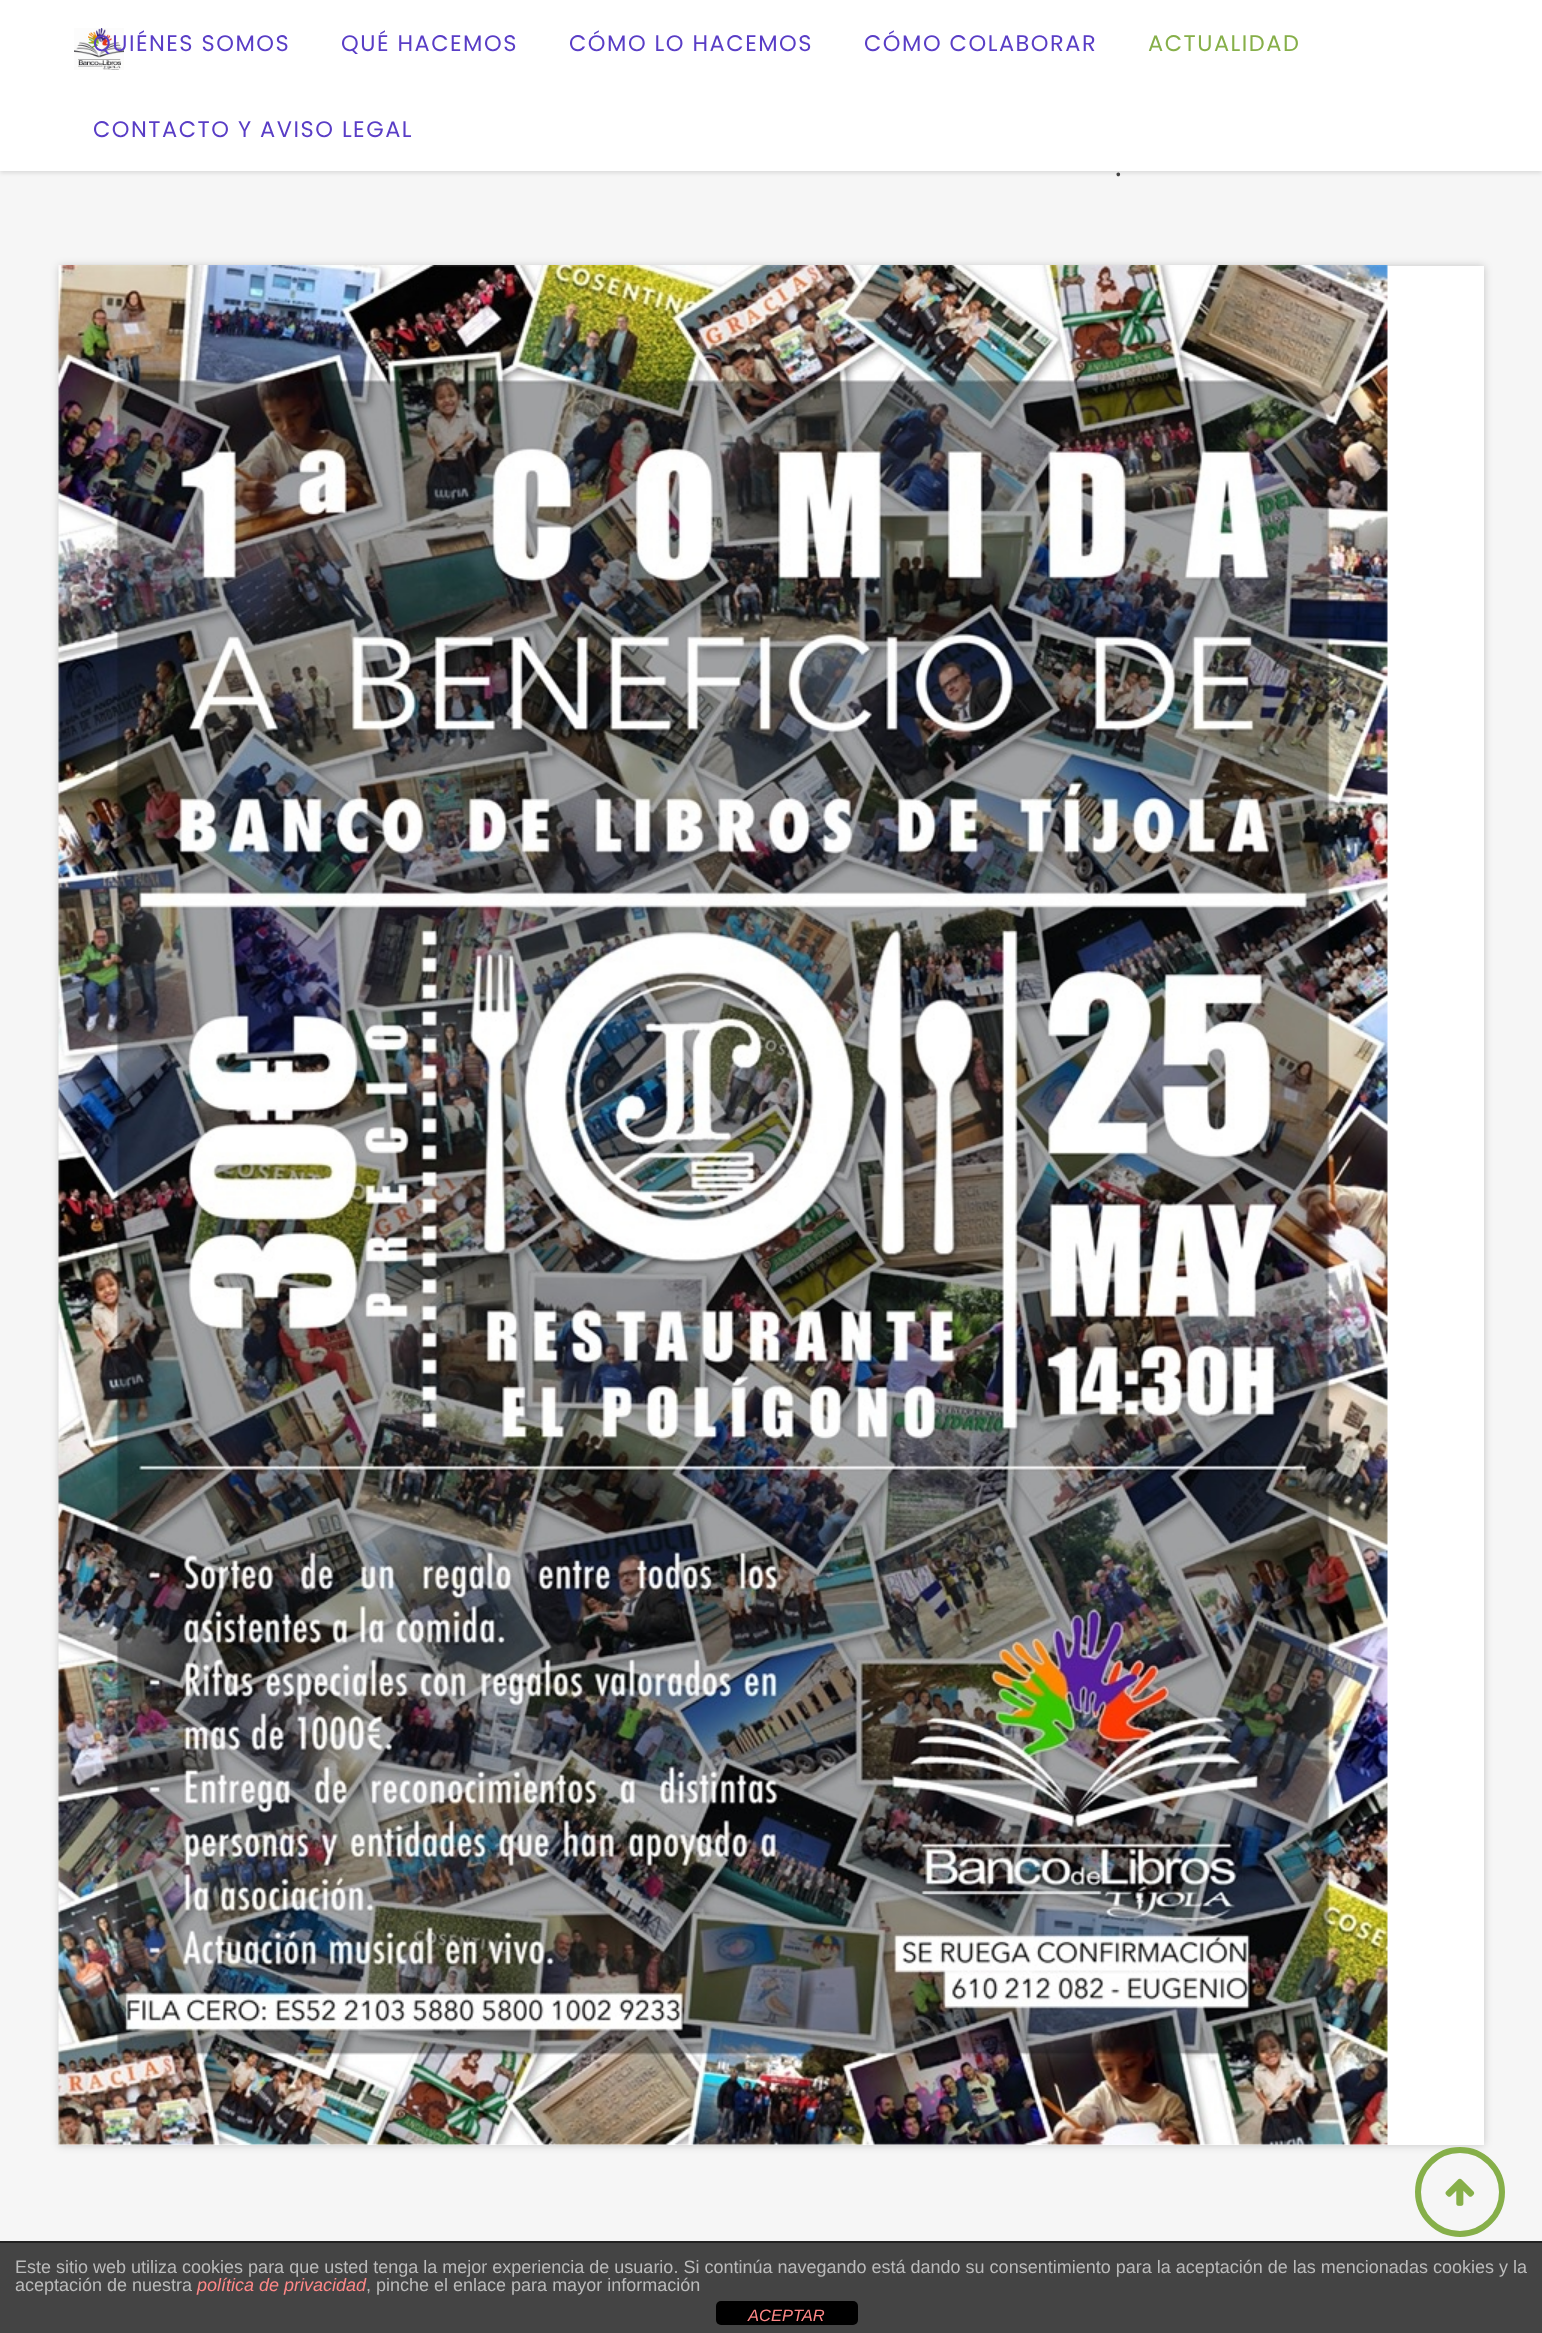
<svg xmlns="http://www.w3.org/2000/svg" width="1542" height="2333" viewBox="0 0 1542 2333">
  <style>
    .t1 { font: 22.5px Poppins; letter-spacing: 1.5px; fill: #593dc6; }
    .t2 { font: 22.5px Poppins; letter-spacing: 1.5px; fill: #86af49; }
    .t3 { font: 300 36px Poppins; fill: #424242; }
    .t4 { font: 18px Liberation Sans; fill: #bbb; }
    .t5 { font: italic 18px Liberation Sans; fill: #f88; }
    .t6 { font: italic 16.5px Liberation Sans; fill: #f88; }
  </style>
  <rect width="100%" height="100%" fill="#f6f6f6"/>
  <rect x="0" y="2" width="1542" height="171" fill="#0000001c" filter="blur(2px)"/>
  <rect x="0" y="0" width="1542" height="171" fill="#fff"/>
  <image x="74" y="28" width="50" height="42" href="images/1.png"/>
  <text x="93" y="51" class="t1">QUIÉNES SOMOS</text>
  <text x="341" y="51" class="t1">QUÉ HACEMOS</text>
  <text x="569" y="51" class="t1">CÓMO LO HACEMOS</text>
  <text x="864" y="51" class="t1">CÓMO COLABORAR</text>
  <text x="1148" y="51" class="t2">ACTUALIDAD</text>
  <text x="93" y="137" class="t1">CONTACTO Y AVISO LEGAL</text>
  <text x="1115" y="176" class="t3">.</text>
  <rect x="59" y="266" width="1425" height="1879" fill="#00000033" filter="blur(4.5px)"/>
  <rect x="59" y="266" width="1425" height="1879" fill="#fff"/>
  <image x="58" y="265" width="1330" height="1880" href="images/2.png"/>
  <circle cx="1460" cy="2192" r="42" fill="none" stroke="#86af49" stroke-width="6"/>
  <image x="1445" y="2178" width="30" height="28" href="images/3.png"/>
  <rect x="0" y="2243" width="1542" height="90" fill="#444"/>
  <rect x="0" y="2241" width="1542" height="2" fill="#222"/>
  <text x="15" y="2273" class="t4">Este sitio web utiliza cookies para que usted tenga la mejor experiencia de usuario. Si continúa navegando está dando su consentimiento para la aceptación de las mencionadas cookies y la</text>
  <text x="15" y="2291" class="t4">aceptación de nuestra</text>
  <text x="197" y="2291" class="t5">política de privacidad</text>
  <text x="366" y="2291" class="t4">, pinche el enlace para mayor información</text>
  <rect x="716" y="2301" width="142" height="24" rx="5" fill="#000"/>
  <text x="748" y="2321" class="t6">ACEPTAR</text>
</svg>
